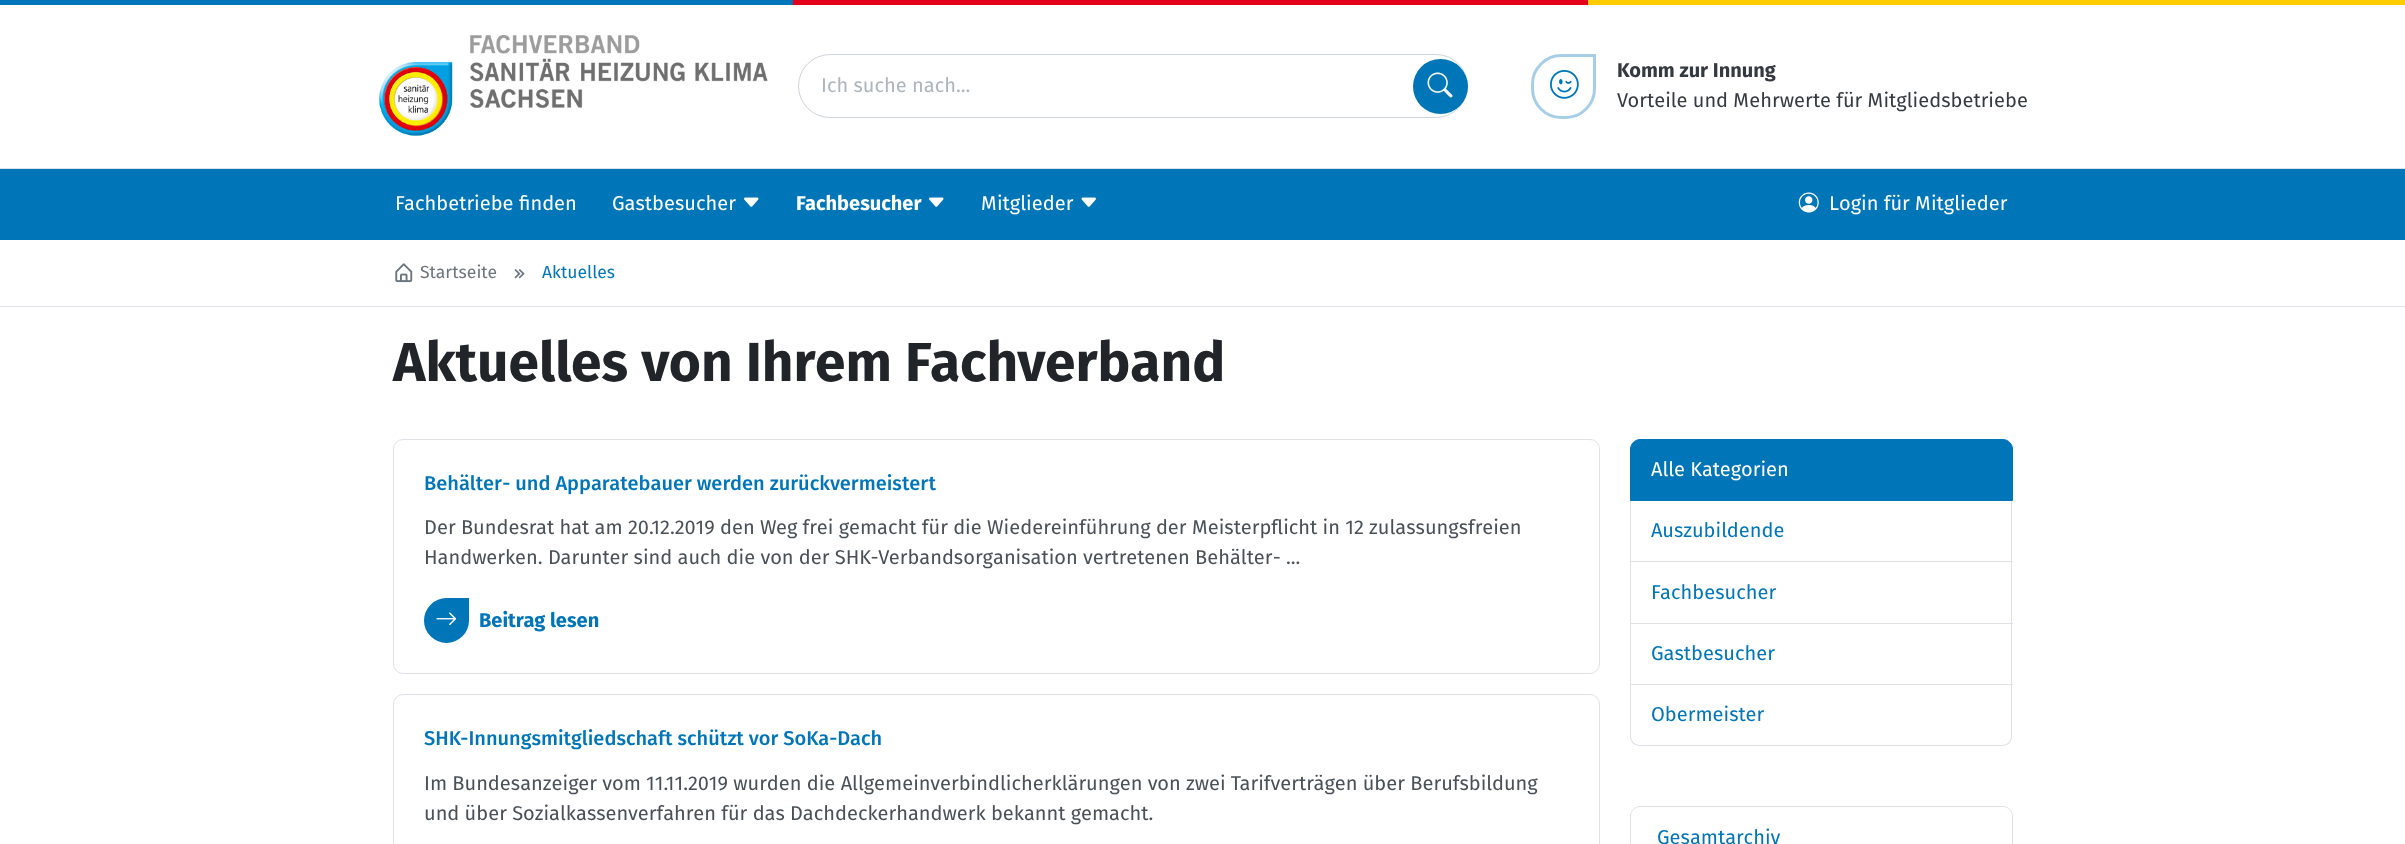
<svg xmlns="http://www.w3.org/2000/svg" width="2405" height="844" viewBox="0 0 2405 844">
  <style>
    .t1 { font: 20px Fira Sans; fill: #adb5bd; }
    .t2 { font: bold 20px Fira Sans; fill: #343a40; }
    .t3 { font: 20px Fira Sans; fill: #343a40; }
    .t4 { font: 20px Fira Sans; fill: #fff; }
    .t5 { font: bold 20px Fira Sans; fill: #fff; }
    .t6 { font: 17.5px Fira Sans; fill: #6c757d; }
    .t7 { font: 17.5px Fira Sans; fill: #0076b9; }
    .t8 { font: bold 55px Fira Sans; fill: #212529; }
    .t9 { font: 500 20px Fira Sans; fill: #0076b9; }
    .t10 { font: 20px Fira Sans; fill: #495057; }
    .t11 { font: bold 20px Fira Sans; fill: #0076b9; }
    .t12 { font: 20px Fira Sans; fill: #0076b9; }
  </style>
  <rect width="100%" height="100%" fill="#fff"/>
  <image x="0" y="0" width="2405" height="5" href="images/1.png"/>
  <rect x="0" y="168" width="2405" height="1" fill="#dee2e6"/>
  <image x="379" y="35" width="389" height="101" href="images/2.png"/>
  <rect x="798.5" y="54.5" width="669" height="63" rx="31.5" fill="none" stroke="#ced4da"/>
  <text x="821" y="92" class="t1">Ich suche nach...</text>
  <circle cx="1440.5" cy="86.5" r="27.5" fill="#0076b9"/>
  <image x="1427" y="72" width="26" height="26" href="images/3.png"/>
  <path d="M1561 55.5H1594.5V89C1594.5 104.5 1581.5 117.5 1566 117.5H1561C1545.5 117.5 1532.5 104.5 1532.5 89V84C1532.5 68.5 1545.5 55.5 1561 55.5Z" fill="none" stroke="#a6cfe7" stroke-width="3"/>
  <image x="1550" y="70" width="29" height="29" href="images/4.png"/>
  <text x="1617" y="77" class="t2">Komm zur Innung</text>
  <text x="1617" y="107" class="t3">Vorteile und Mehrwerte für Mitgliedsbetriebe</text>
  <rect x="0" y="169" width="2405" height="71" fill="#0076b9"/>
  <text x="395" y="210" class="t4">Fachbetriebe finden</text>
  <text x="612" y="210" class="t4">Gastbesucher</text>
  <image x="744" y="197" width="15" height="10" href="images/5.png"/>
  <text x="796" y="210" class="t5">Fachbesucher</text>
  <image x="929" y="197" width="15" height="10" href="images/5.png"/>
  <text x="981" y="210" class="t4">Mitglieder</text>
  <image x="1081" y="197" width="15" height="10" href="images/6.png"/>
  <image x="1798" y="192" width="21" height="21" href="images/7.png"/>
  <text x="1829" y="210" class="t4">Login für Mitglieder</text>
  <rect x="0" y="306" width="2405" height="1" fill="#dee2e6"/>
  <image x="395" y="263" width="18" height="20" href="images/8.png"/>
  <text x="420" y="278" class="t6">Startseite</text>
  <image x="514" y="269" width="11" height="10" href="images/9.png"/>
  <text x="542" y="278" class="t7">Aktuelles</text>
  <text x="393" y="381" class="t8">Aktuelles von Ihrem Fachverband</text>
  <rect x="393.5" y="439.5" width="1206" height="234" rx="9.5" fill="none" stroke="#dee2e6"/>
  <text x="424" y="490" class="t9">Behälter- und Apparatebauer werden zurückvermeistert</text>
  <text x="424" y="534" class="t10">Der Bundesrat hat am 20.12.2019 den Weg frei gemacht für die Wiedereinführung der Meisterpflicht in 12 zulassungsfreien</text>
  <text x="424" y="564" class="t10">Handwerken. Darunter sind auch die von der SHK-Verbandsorganisation vertretenen Behälter- ...</text>
  <path d="M446.5 599.5H467.5V620.5C467.5 632 458 641.5 446.5 641.5C435 641.5 425.5 632 425.5 620.5C425.5 609 435 599.5 446.5 599.5Z" fill="#0076b9" stroke="#0076b9" stroke-width="3"/>
  <image x="436" y="612" width="20" height="13" href="images/10.png"/>
  <text x="479" y="627" class="t11">Beitrag lesen</text>
  <rect x="393.5" y="694.5" width="1206" height="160" rx="9.5" fill="none" stroke="#dee2e6"/>
  <text x="424" y="745" class="t9">SHK-Innungsmitgliedschaft schützt vor SoKa-Dach</text>
  <text x="424" y="790" class="t10">Im Bundesanzeiger vom 11.11.2019 wurden die Allgemeinverbindlicherklärungen von zwei Tarifverträgen über Berufsbildung</text>
  <text x="424" y="820" class="t10">und über Sozialkassenverfahren für das Dachdeckerhandwerk bekannt gemacht.</text>
  <path d="M1640 439.5H2003C2008 439.5 2012.5 444 2012.5 449V500.5H1630.5V449C1630.5 444 1635 439.5 1640 439.5Z" fill="#0076b9" stroke="#0076b9"/>
  <text x="1651" y="476" class="t4">Alle Kategorien</text>
  <rect x="2011" y="501" width="1" height="184" fill="#dee2e6"/>
  <rect x="1630" y="561" width="383" height="1" fill="#dee2e6"/>
  <rect x="1630" y="501" width="1" height="62" fill="#dee2e6"/>
  <text x="1651" y="537" class="t12">Auszubildende</text>
  <rect x="1630" y="623" width="383" height="1" fill="#dee2e6"/>
  <rect x="1630" y="563" width="1" height="61" fill="#dee2e6"/>
  <text x="1651" y="599" class="t12">Fachbesucher</text>
  <rect x="1630" y="684" width="383" height="1" fill="#dee2e6"/>
  <rect x="1630" y="624" width="1" height="61" fill="#dee2e6"/>
  <text x="1651" y="660" class="t12">Gastbesucher</text>
  <path d="M1630 685H2012V736C2012 742 2008 746 2002 746H1640C1634 746 1630 742 1630 736ZM1631 685H2011V736C2011 741 2007 745 2002 745H1640C1635 745 1631 741 1631 736Z" fill="#dee2e6" fill-rule="evenodd"/>
  <text x="1651" y="721" class="t12">Obermeister</text>
  <path d="M1640 806.5H2003C2008 806.5 2012.5 811 2012.5 816V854.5H1630.5V816C1630.5 811 1635 806.5 1640 806.5Z" fill="none" stroke="#dee2e6"/>
  <text x="1657" y="844" class="t12">Gesamtarchiv</text>
</svg>
